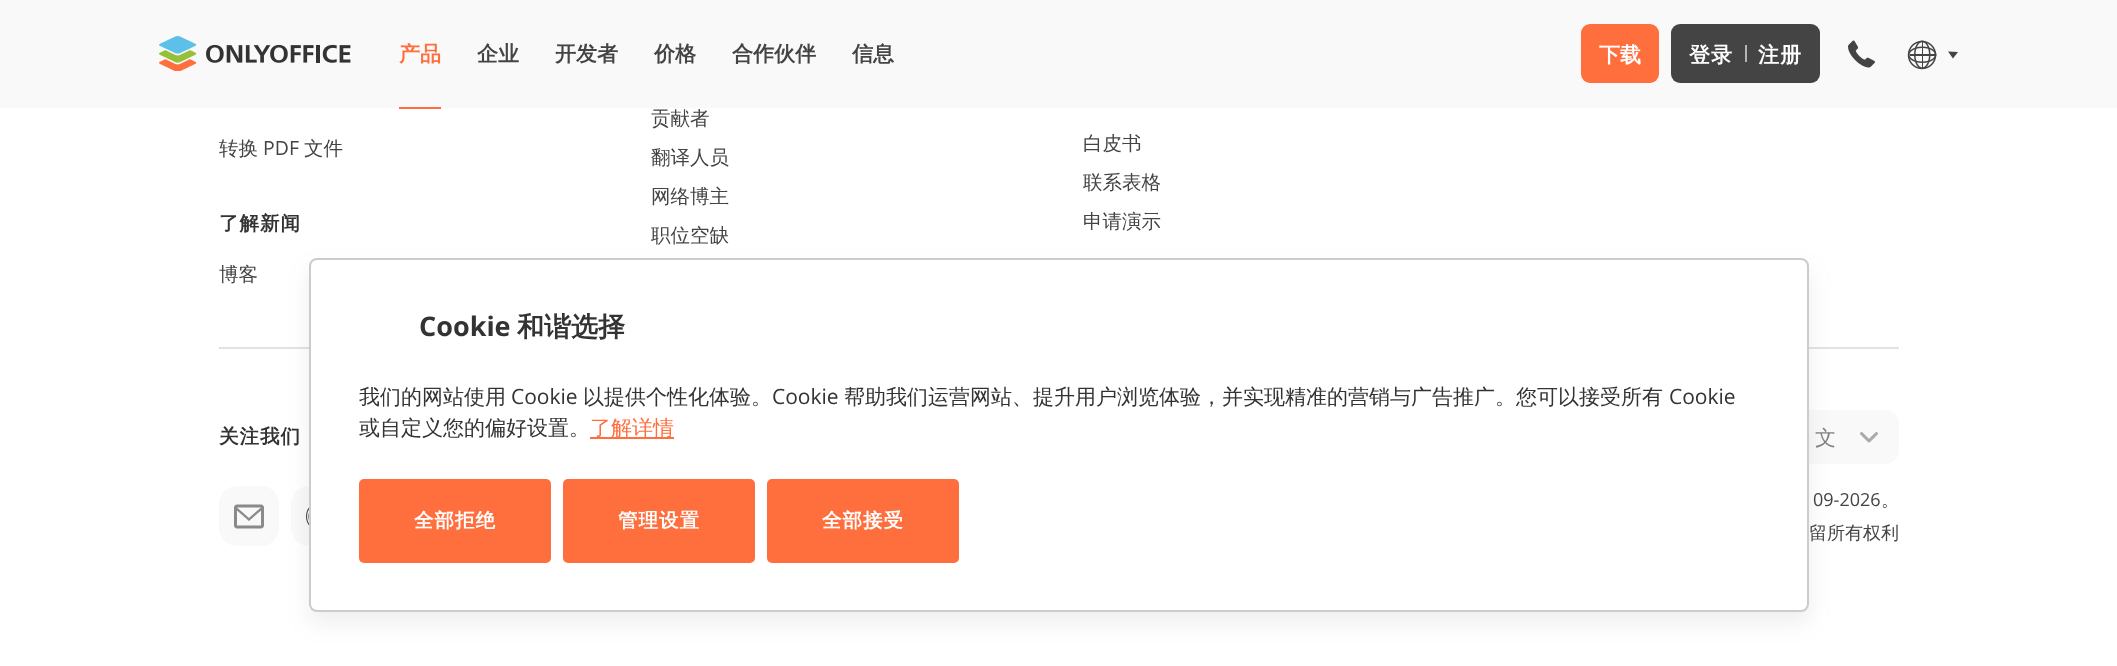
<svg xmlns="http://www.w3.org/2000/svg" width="2117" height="666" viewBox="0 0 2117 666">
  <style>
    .t1 { font: bold 21px WenQuanYi Zen Hei; fill: #ff6f3d; }
    .t2 { font: bold 21px WenQuanYi Zen Hei; fill: #444; }
    .t3 { font: bold 21px WenQuanYi Zen Hei; fill: #fff; }
    .t4 { font: bold 21px WenQuanYi Zen Hei; letter-spacing: 1px; fill: #fff; }
    .t5 { font: 500 19.5px WenQuanYi Zen Hei; fill: #444; }
    .t6 { font: 19.5px Open Sans; fill: #444; }
    .t7 { font: bold 19.5px WenQuanYi Zen Hei; letter-spacing: 1px; fill: #333; }
    .t8 { font: 500 21px WenQuanYi Zen Hei; fill: #808080; }
    .t9 { font: 18px Open Sans; fill: #444; }
    .t10 { font: 500 18px WenQuanYi Zen Hei; fill: #444; }
    .t11 { font: bold 27px Open Sans; fill: #333; }
    .t12 { font: bold 27px WenQuanYi Zen Hei; fill: #333; }
    .t13 { font: 500 21px WenQuanYi Zen Hei; fill: #333; }
    .t14 { font: 21px Open Sans; fill: #333; }
    .t15 { font: 500 21px WenQuanYi Zen Hei; fill: #ff6f3d; }
    .t16 { font: bold 19.5px WenQuanYi Zen Hei; letter-spacing: 1px; fill: #fff; }
  </style>
  <rect width="100%" height="100%" fill="#fff"/>
  <rect x="0" y="0" width="2117" height="108" fill="#f9f9f9"/>
  <image x="159" y="36" width="192" height="35" href="images/1.png"/>
  <text x="399" y="61" class="t1">产品</text>
  <rect x="399" y="107" width="42" height="2" fill="#ff6f3d"/>
  <text x="477" y="61" class="t2">企业</text>
  <text x="555" y="61" class="t2">开发者</text>
  <text x="654" y="61" class="t2">价格</text>
  <text x="732" y="61" class="t2">合作伙伴</text>
  <text x="852" y="61" class="t2">信息</text>
  <rect x="1581" y="24" width="78" height="59" rx="9" fill="#ff6f3d"/>
  <text x="1599" y="62" class="t3">下载</text>
  <rect x="1671" y="24" width="149" height="59" rx="9" fill="#444"/>
  <text x="1689" y="62" class="t4">登录</text>
  <rect x="1745" y="45" width="2" height="17" fill="#b4b4b4"/>
  <text x="1758" y="62" class="t4">注册</text>
  <image x="1848" y="40" width="27" height="28" href="images/2.png"/>
  <image x="1907" y="40" width="30" height="30" href="images/3.png"/>
  <path d="M1953 58.5L1948 51.5L1958 52Z" fill="#444"/>
  <text x="219" y="155" class="t5">转换</text>
  <text x="263" y="155" class="t6">PDF</text>
  <text x="304" y="155" class="t5">文件</text>
  <text x="219" y="230" class="t7">了解新闻</text>
  <text x="219" y="281" class="t5">博客</text>
  <text x="651" y="125" class="t5">贡献者</text>
  <text x="651" y="164" class="t5">翻译人员</text>
  <text x="651" y="203" class="t5">网络博主</text>
  <text x="651" y="242" class="t5">职位空缺</text>
  <text x="1083" y="150" class="t5">白皮书</text>
  <text x="1083" y="189" class="t5">联系表格</text>
  <text x="1083" y="228" class="t5">申请演示</text>
  <rect x="219" y="347" width="1680" height="2" fill="#e2e2e2"/>
  <text x="219" y="443" class="t7">关注我们</text>
  <rect x="219" y="486" width="60" height="60" rx="18" fill="#f9f9f9"/>
  <image x="234" y="504" width="30" height="25" href="images/4.png"/>
  <rect x="291" y="486" width="60" height="60" rx="18" fill="#f9f9f9"/>
  <image x="306" y="507" width="3" height="19" href="images/5.png"/>
  <rect x="1782" y="410" width="117" height="54" rx="14" fill="#f9f9f9"/>
  <text x="1815" y="445" class="t8">文</text>
  <image x="1860" y="432" width="18" height="11" href="images/6.png"/>
  <text x="1813" y="506" class="t9">09-2026</text>
  <text x="1881" y="506" class="t10">。</text>
  <text x="1809" y="539" class="t10">留所有权利</text>
  <rect x="309" y="269" width="1500" height="354" rx="8" fill="#5555551a" filter="blur(11px)"/>
  <rect x="310" y="259" width="1498" height="352" rx="7" fill="#fff" stroke="#ccc" stroke-width="2"/>
  <text x="419" y="336" class="t11">Cookie</text>
  <text x="517" y="336" class="t12">和谐选择</text>
  <text x="359" y="404" class="t13">我们的网站使用</text>
  <text x="511" y="404" class="t14">Cookie</text>
  <text x="583" y="404" class="t13">以提供个性化体验。</text>
  <text x="772" y="404" class="t14">Cookie</text>
  <text x="844" y="404" class="t13">帮助我们运营网站、提升用户浏览体验，并实现精准的营销与广告推广。您可以接受所有</text>
  <text x="1669" y="404" class="t14">Cookie</text>
  <text x="359" y="435" class="t13">或自定义您的偏好设置。</text>
  <rect x="590" y="437" width="84" height="2" fill="#ff6f3d"/>
  <text x="590" y="435" class="t15">了解详情</text>
  <rect x="359" y="479" width="192" height="84" rx="5" fill="#ff6f3d"/>
  <text x="414" y="527" class="t16">全部拒绝</text>
  <rect x="563" y="479" width="192" height="84" rx="5" fill="#ff6f3d"/>
  <text x="618" y="527" class="t16">管理设置</text>
  <rect x="767" y="479" width="192" height="84" rx="5" fill="#ff6f3d"/>
  <text x="822" y="527" class="t16">全部接受</text>
</svg>
